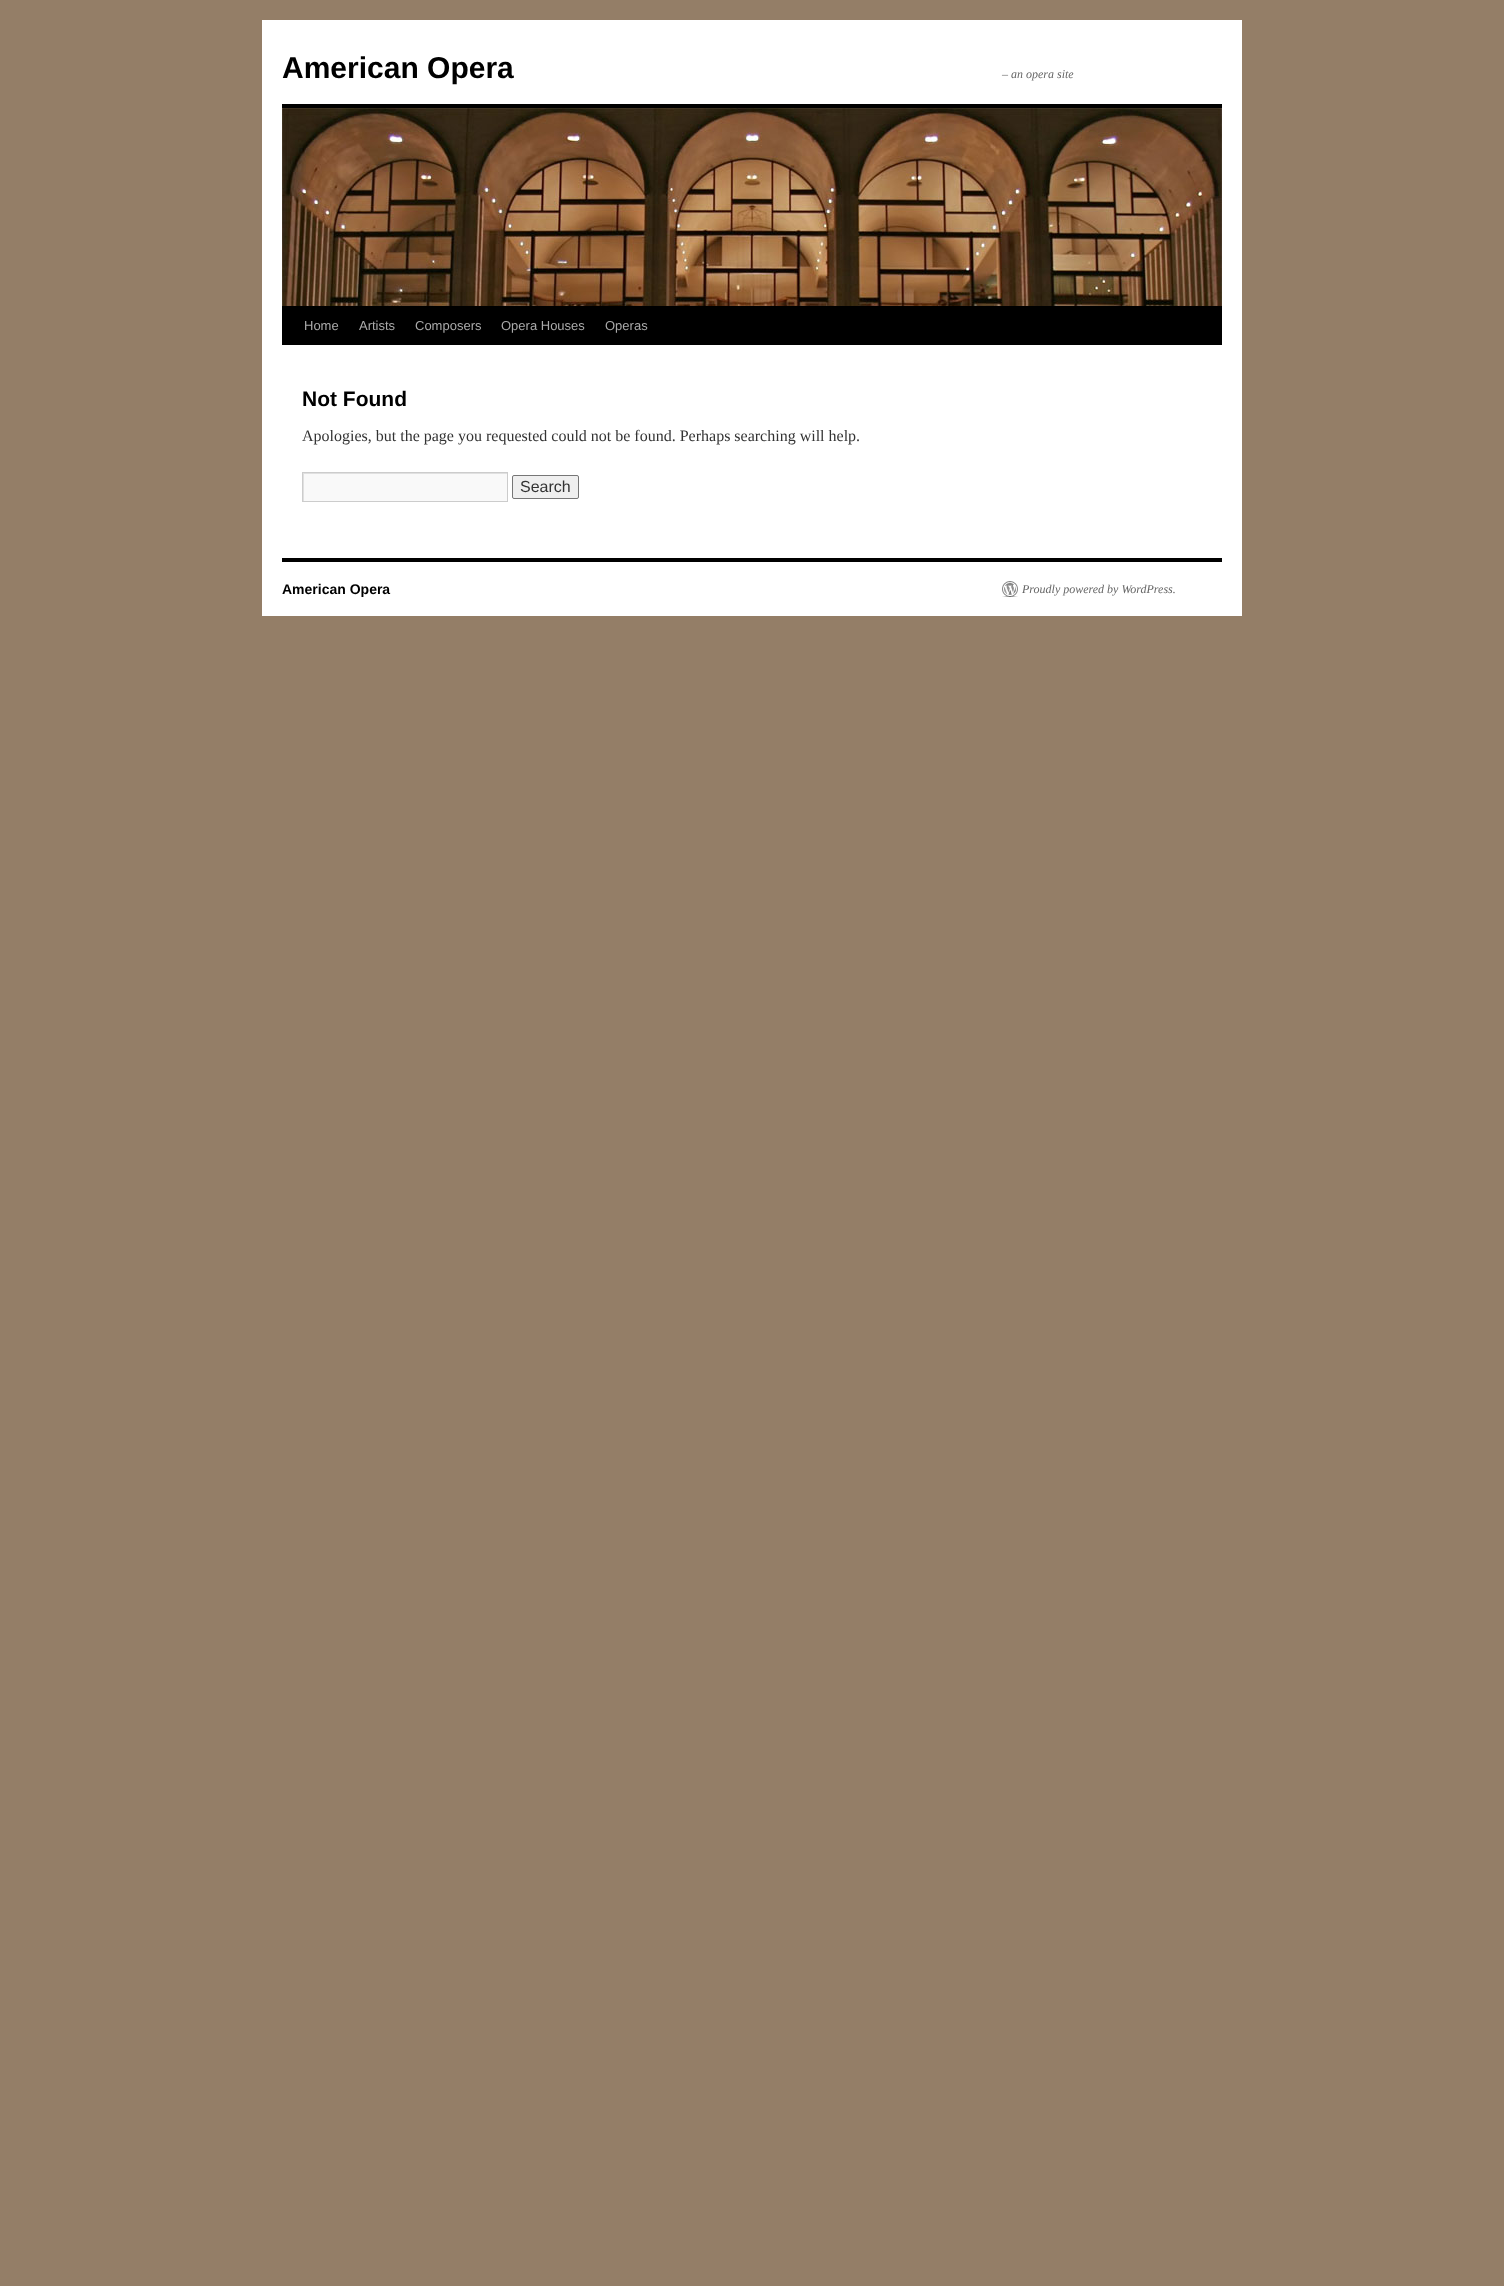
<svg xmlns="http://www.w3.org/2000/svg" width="1504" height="2286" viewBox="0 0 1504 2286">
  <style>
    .t1 { font: bold 30px Liberation Sans; fill: #000; }
    .t2 { font: italic 12px Liberation Serif; fill: #666; }
    .t3 { font: 13px Liberation Sans; fill: #aaa; }
    .t4 { font: bold 21px Liberation Sans; fill: #000; }
    .t5 { font: 16px Liberation Serif; fill: #333; }
    .t6 { font: 16px Liberation Sans; fill: #333; }
    .t7 { font: bold 14px Liberation Sans; fill: #000; }
  </style>
  <defs>
    <clipPath id="clip1"><rect x="303" y="473" width="204" height="28"/></clipPath>
  </defs>
  <rect width="100%" height="100%" fill="#947e67"/>
  <rect x="262" y="20" width="980" height="596" fill="#fff"/>
  <text x="282" y="78" class="t1">American Opera</text>
  <text x="1002" y="78" class="t2">– an opera site</text>
  <rect x="282" y="104" width="940" height="4" fill="#000"/>
  <rect x="282" y="306" width="940" height="39" fill="#000"/>
  <image x="282" y="108" width="940" height="198" href="images/1.png"/>
  <text x="304" y="330" class="t3">Home</text>
  <text x="359" y="330" class="t3">Artists</text>
  <text x="415" y="330" class="t3">Composers</text>
  <text x="501" y="330" class="t3">Opera Houses</text>
  <text x="605" y="330" class="t3">Operas</text>
  <text x="302" y="406" class="t4">Not Found</text>
  <text x="302" y="441" class="t5">Apologies, but the page you requested could not be found. Perhaps searching will help.</text>
  <rect x="304" y="474" width="203" height="27" fill="#f9f9f9"/>
  <g clip-path="url(#clip1)">
    <path d="M204 374H606V600H204ZM304 474H508V502H304Z" fill="#e0e0e0" fill-rule="evenodd"/>
  </g>
  <rect x="302.5" y="472.5" width="205" height="29" fill="none" stroke="#ccc"/>
  <rect x="512.5" y="475.5" width="66" height="23" rx="1.5" fill="#efefef" stroke="#767676"/>
  <text x="520" y="492" class="t6">Search</text>
  <rect x="282" y="558" width="940" height="4" fill="#000"/>
  <text x="282" y="594" class="t7">American Opera</text>
  <image x="1002" y="581" width="16" height="16" href="images/2.png"/>
  <text x="1022" y="593" class="t2">Proudly powered by WordPress.</text>
</svg>
